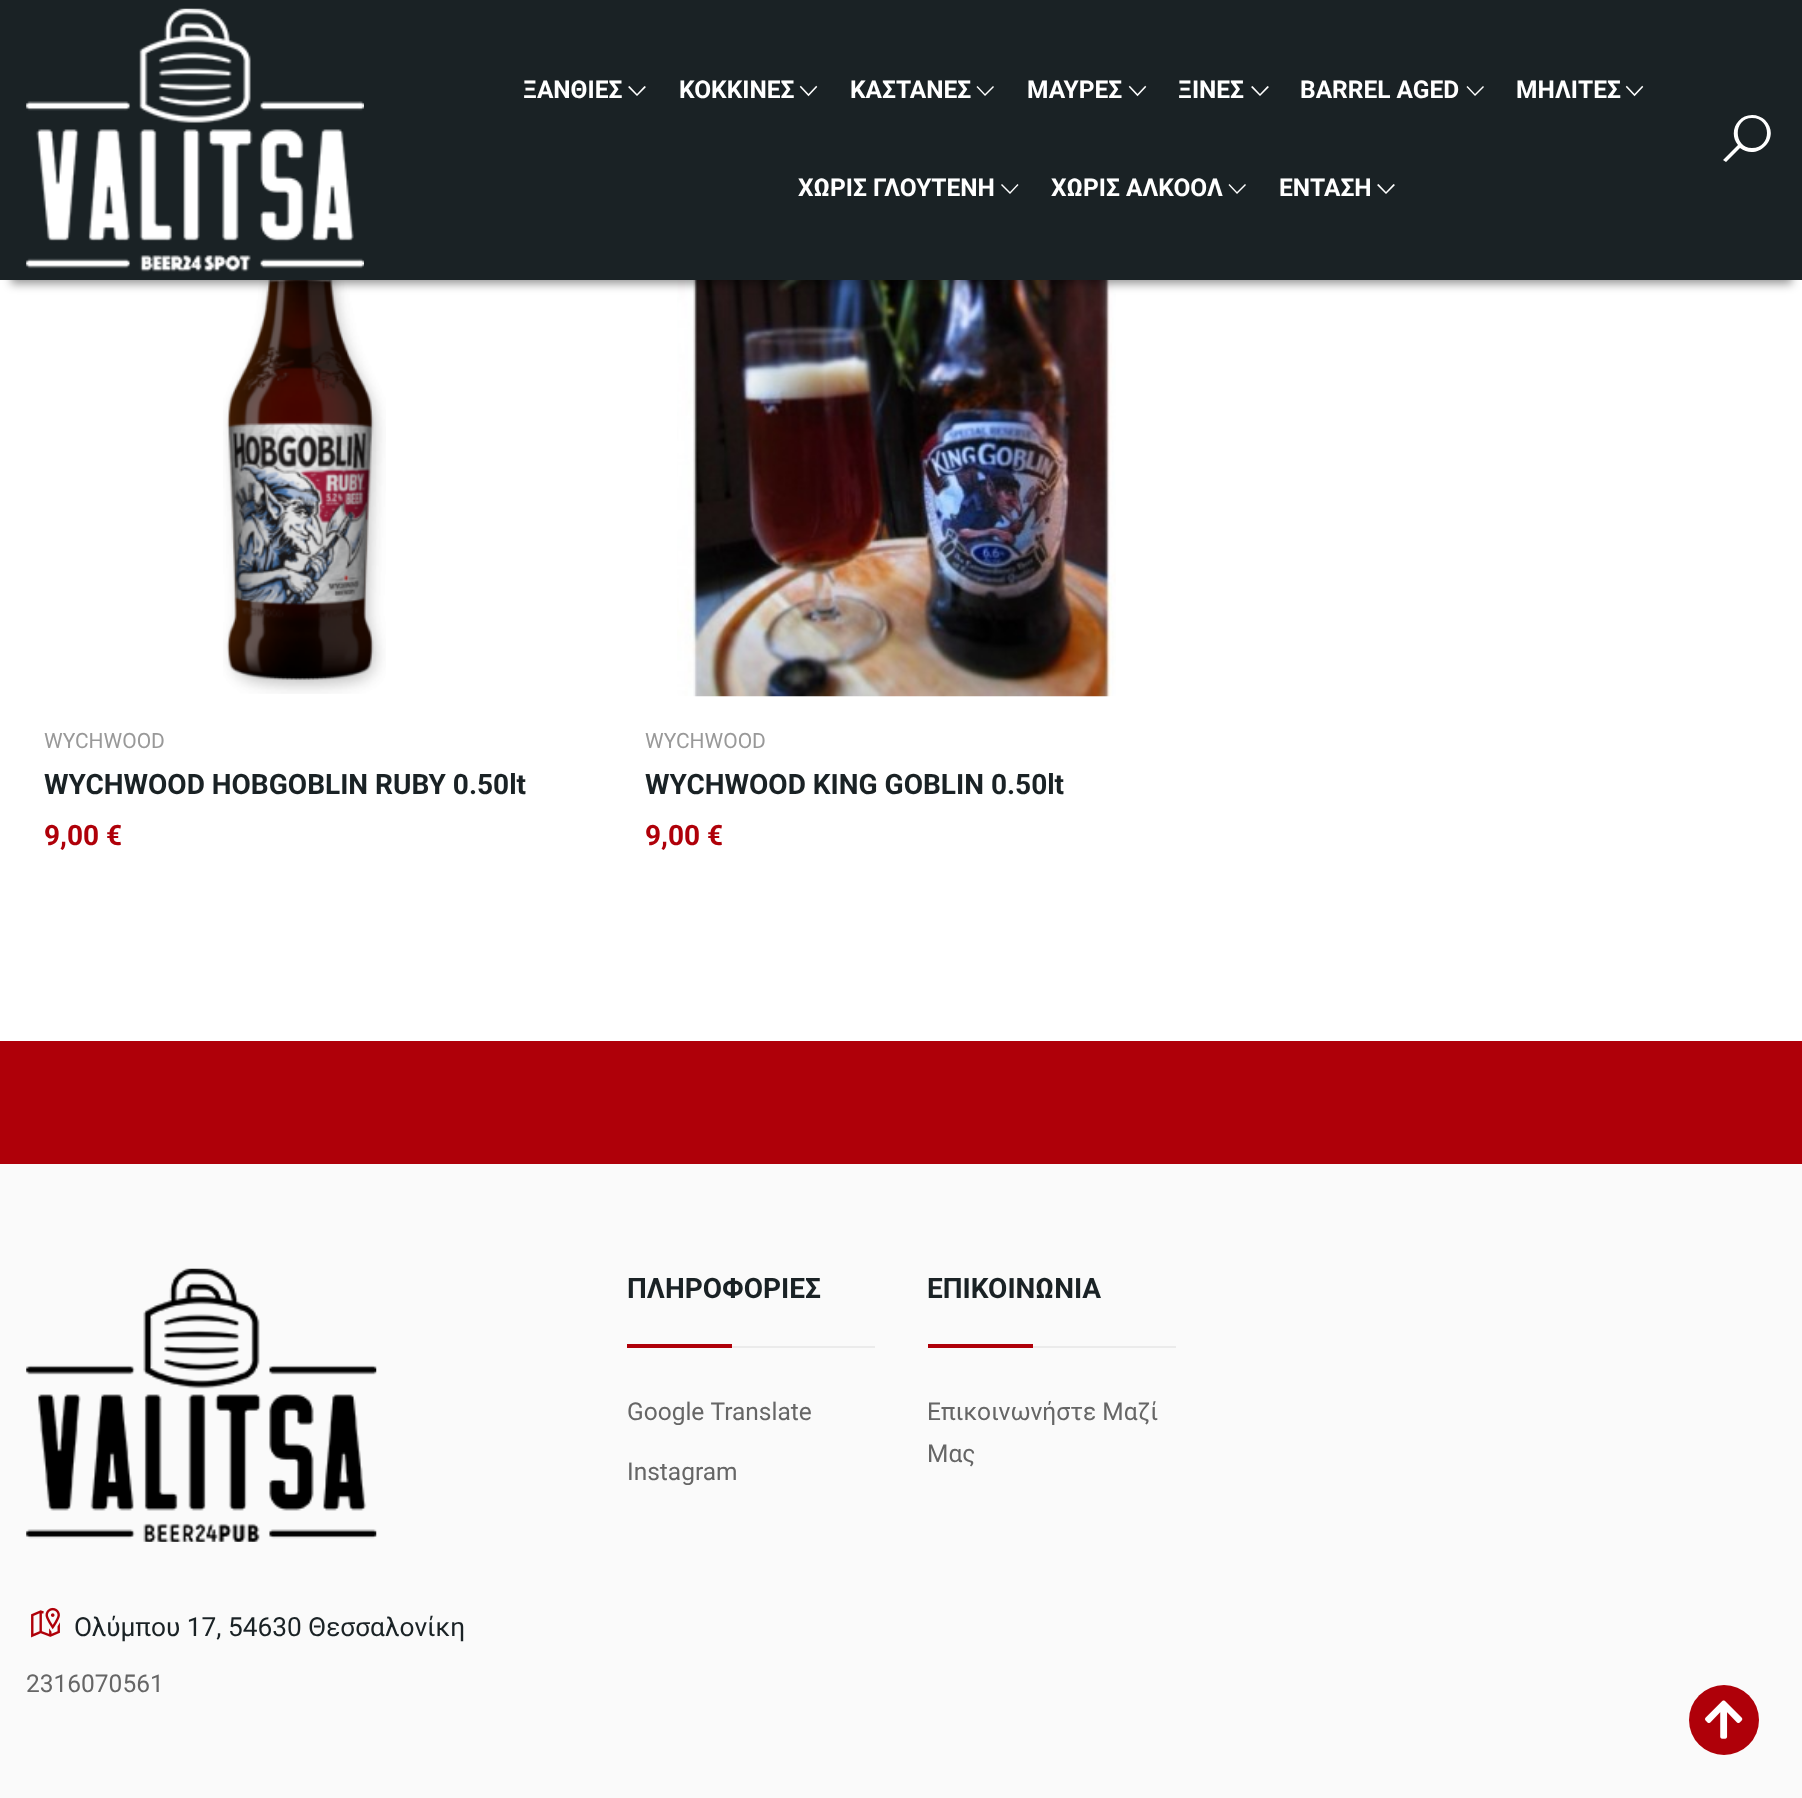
<svg xmlns="http://www.w3.org/2000/svg" width="1802" height="1798" viewBox="0 0 1802 1798">
  <style>
    .t1 { font: bold 24.5px Roboto; fill: #fff; }
    .t2 { font: 21px Roboto; fill: #999; }
    .t3 { font: bold 28px Roboto; fill: #1a2225; }
    .t4 { font: bold 28px Roboto; fill: #af0009; }
    .t5 { font: 24.5px Roboto; fill: #666; }
    .t6 { font: 26.25px Roboto; fill: #1a2225; }
  </style>
  <rect width="100%" height="100%" fill="#fff"/>
  <image x="223" y="280" width="163" height="414" href="images/3.png"/>
  <image x="677" y="280" width="439" height="417" href="images/4.png"/>
  <rect x="11" y="25" width="1781" height="259" fill="#00000066" filter="blur(5px)"/>
  <rect x="0" y="0" width="1802" height="280" fill="#1a2225"/>
  <image x="26" y="8" width="338" height="264" href="images/1.png"/>
  <text x="523" y="98" class="t1">ΞΑΝΘΙΕΣ</text>
  <path d="M644.5 86L646 87L637 96L628 87L629.5 86L637 94Z" fill="#fff"/>
  <text x="679" y="98" class="t1">ΚΟΚΚΙΝΕΣ</text>
  <image x="799" y="85" width="19" height="12" href="images/2.png"/>
  <text x="850" y="98" class="t1">ΚΑΣΤΑΝΕΣ</text>
  <path d="M993 86L994 87L985 96L976.5 87L977.5 86L985 94Z" fill="#fff"/>
  <text x="1027" y="98" class="t1">ΜΑΥΡΕΣ</text>
  <image x="1128" y="85" width="19" height="12" href="images/2.png"/>
  <text x="1178" y="98" class="t1">ΞΙΝΕΣ</text>
  <path d="M1267.5 86L1269 87L1260 96L1251 87L1252.5 86L1260 94Z" fill="#fff"/>
  <text x="1300" y="98" class="t1">BARREL AGED</text>
  <path d="M1483 86L1484 87L1475 96L1466.5 87L1467.5 86L1475 94Z" fill="#fff"/>
  <text x="1516" y="98" class="t1">ΜΗΛΙΤΕΣ</text>
  <image x="1625" y="85" width="19" height="12" href="images/2.png"/>
  <text x="798" y="196" class="t1">ΧΩΡΙΣ ΓΛΟΥΤΕΝΗ</text>
  <path d="M1017.5 184L1018.5 185L1010 194L1001 185L1002 184L1010 192Z" fill="#fff"/>
  <text x="1051" y="196" class="t1">ΧΩΡΙΣ ΑΛΚΟΟΛ</text>
  <path d="M1245 184L1246 185L1237 194L1228.5 185L1229.5 184L1237 192Z" fill="#fff"/>
  <text x="1279" y="196" class="t1">ΕΝΤΑΣΗ</text>
  <path d="M1393.5 184L1395 185L1386 194L1377 185L1378.5 184L1386 192Z" fill="#fff"/>
  <path d="M1752 115C1737 115 1728 133 1738 145L1723 160L1726 162L1740 148C1758 162 1782 137 1765 120C1762 117 1757 115 1752 115ZM1752 118C1772 118 1772 148 1752 148C1733 148 1733 118 1752 118Z" fill="#fff"/>
  <text x="44" y="748" class="t2">WYCHWOOD</text>
  <text x="44" y="794" class="t3">WYCHWOOD HOBGOBLIN RUBY 0.50lt</text>
  <text x="44" y="845" class="t4">9,00 €</text>
  <text x="645" y="748" class="t2">WYCHWOOD</text>
  <text x="645" y="794" class="t3">WYCHWOOD KING GOBLIN 0.50lt</text>
  <text x="645" y="845" class="t4">9,00 €</text>
  <rect x="0" y="1164" width="1802" height="634" fill="#fafafa"/>
  <rect x="0" y="1041" width="1802" height="123" fill="#af0009"/>
  <rect x="732" y="1346" width="143" height="2" fill="#ebebeb"/>
  <text x="627" y="1298" class="t3">ΠΛΗΡΟΦΟΡΙΕΣ</text>
  <rect x="627" y="1344" width="105" height="4" fill="#af0009"/>
  <text x="627" y="1420" class="t5">Google Translate</text>
  <text x="627" y="1480" class="t5">Instagram</text>
  <rect x="1033" y="1346" width="143" height="2" fill="#ebebeb"/>
  <text x="927" y="1298" class="t3">ΕΠΙΚΟΙΝΩΝΙΑ</text>
  <rect x="928" y="1344" width="105" height="4" fill="#af0009"/>
  <text x="927" y="1420" class="t5">Επικοινωνήστε Μαζί</text>
  <text x="927" y="1462" class="t5">Μας</text>
  <image x="26" y="1268" width="351" height="274" href="images/5.png"/>
  <image x="31" y="1607" width="29" height="31" href="images/6.png"/>
  <text x="74" y="1636" class="t6">Ολύμπου 17, 54630 Θεσσαλονίκη</text>
  <text x="26" y="1692" class="t5">2316070561</text>
  <circle cx="1724" cy="1720" r="35" fill="#af0009"/>
  <image x="1705" y="1700" width="38" height="39" href="images/7.png"/>
</svg>
